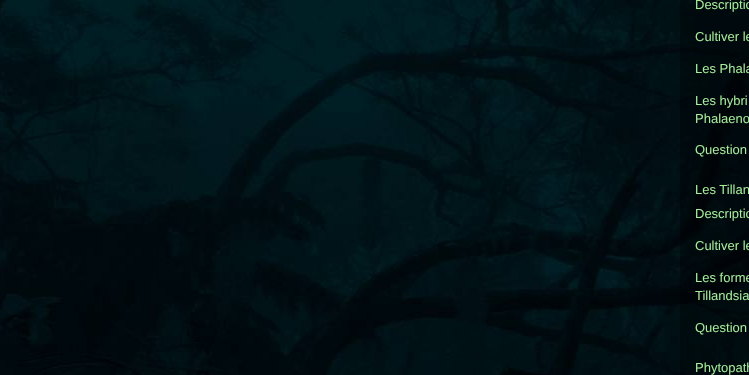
<svg xmlns="http://www.w3.org/2000/svg" width="749" height="375" viewBox="0 0 749 375">
  <style>
    .t1 { font: 13px Liberation Sans; fill: #a8ef9d; }
  </style>
  <rect width="100%" height="100%" fill="#fff"/>
  <image x="0" y="0" width="749" height="375" href="images/1.png"/>
  <rect x="680" y="0" width="69" height="375" fill="#0000004d"/>
  <text x="695" y="9" class="t1">Descriptio</text>
  <text x="695" y="41" class="t1">Cultiver le</text>
  <text x="695" y="73" class="t1">Les Phala</text>
  <text x="695" y="105" class="t1">Les hybri</text>
  <text x="695" y="123" class="t1">Phalaeno</text>
  <text x="695" y="154" class="t1">Question</text>
  <text x="695" y="194" class="t1">Les Tillan</text>
  <text x="695" y="218" class="t1">Descriptio</text>
  <text x="695" y="250" class="t1">Cultiver le</text>
  <text x="695" y="282" class="t1">Les forme</text>
  <text x="695" y="300" class="t1">Tillandsia</text>
  <text x="695" y="332" class="t1">Question</text>
  <text x="695" y="372" class="t1">Phytopath</text>
</svg>
